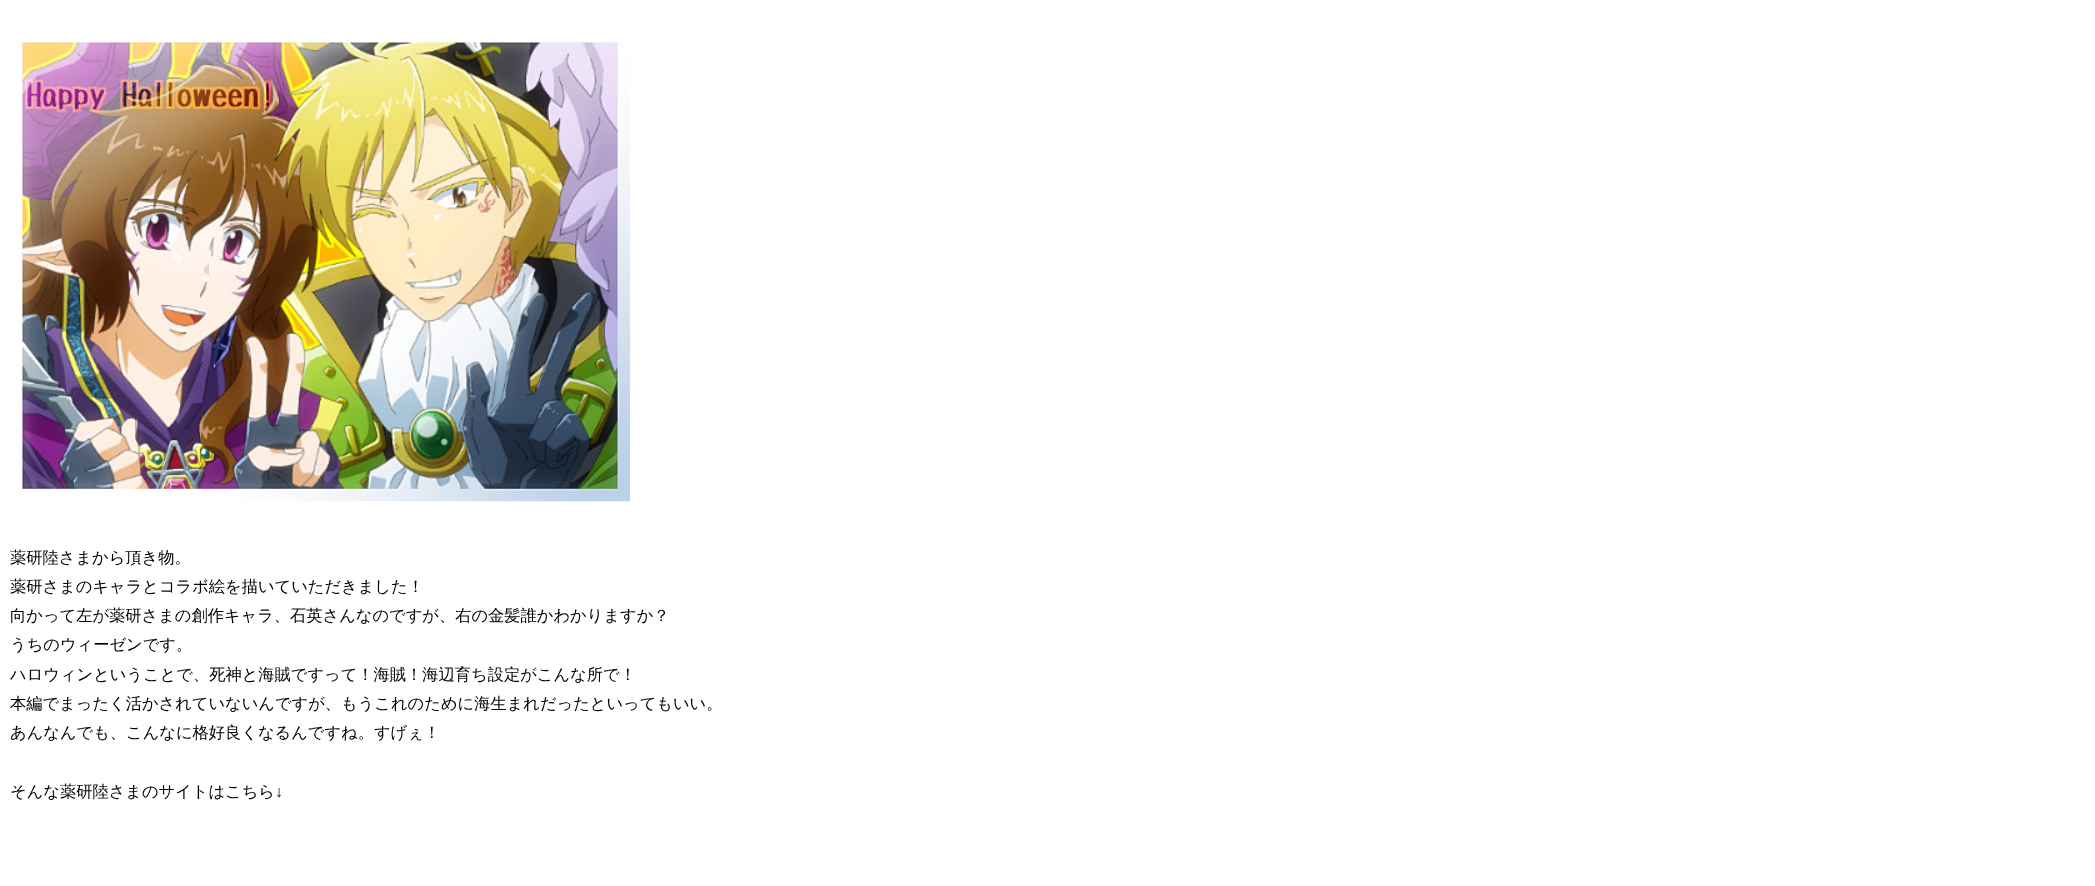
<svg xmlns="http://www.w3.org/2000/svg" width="2095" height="886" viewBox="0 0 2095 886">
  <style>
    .t1 { font: 500 16.25px WenQuanYi Zen Hei; fill: #000; }
    .t2 { font: 16.25px Liberation Serif; fill: #000; }
  </style>
  <rect width="100%" height="100%" fill="#fff"/>
  <image x="20" y="40" width="610" height="462" href="images/1.png"/>
  <text x="10" y="563" class="t1">薬研陸さまから頂き物。</text>
  <text x="10" y="592" class="t1">薬研さまのキャラとコラボ絵を描いていただきました！</text>
  <text x="10" y="621" class="t1">向かって左が薬研さまの創作キャラ、石英さんなのですが、右の金髪誰かわかりますか？</text>
  <text x="10" y="650" class="t1">うちのウィーゼンです。</text>
  <text x="10" y="680" class="t1">ハロウィンということで、死神と海賊ですって！海賊！海辺育ち設定がこんな所で！</text>
  <text x="10" y="709" class="t1">本編でまったく活かされていないんですが、もうこれのために海生まれだったといってもいい。</text>
  <text x="10" y="738" class="t1">あんなんでも、こんなに格好良くなるんですね。すげぇ！</text>
  <text x="10" y="797" class="t1">そんな薬研陸さまのサイトはこちら</text>
  <text x="275" y="797" class="t2">↓</text>
</svg>
